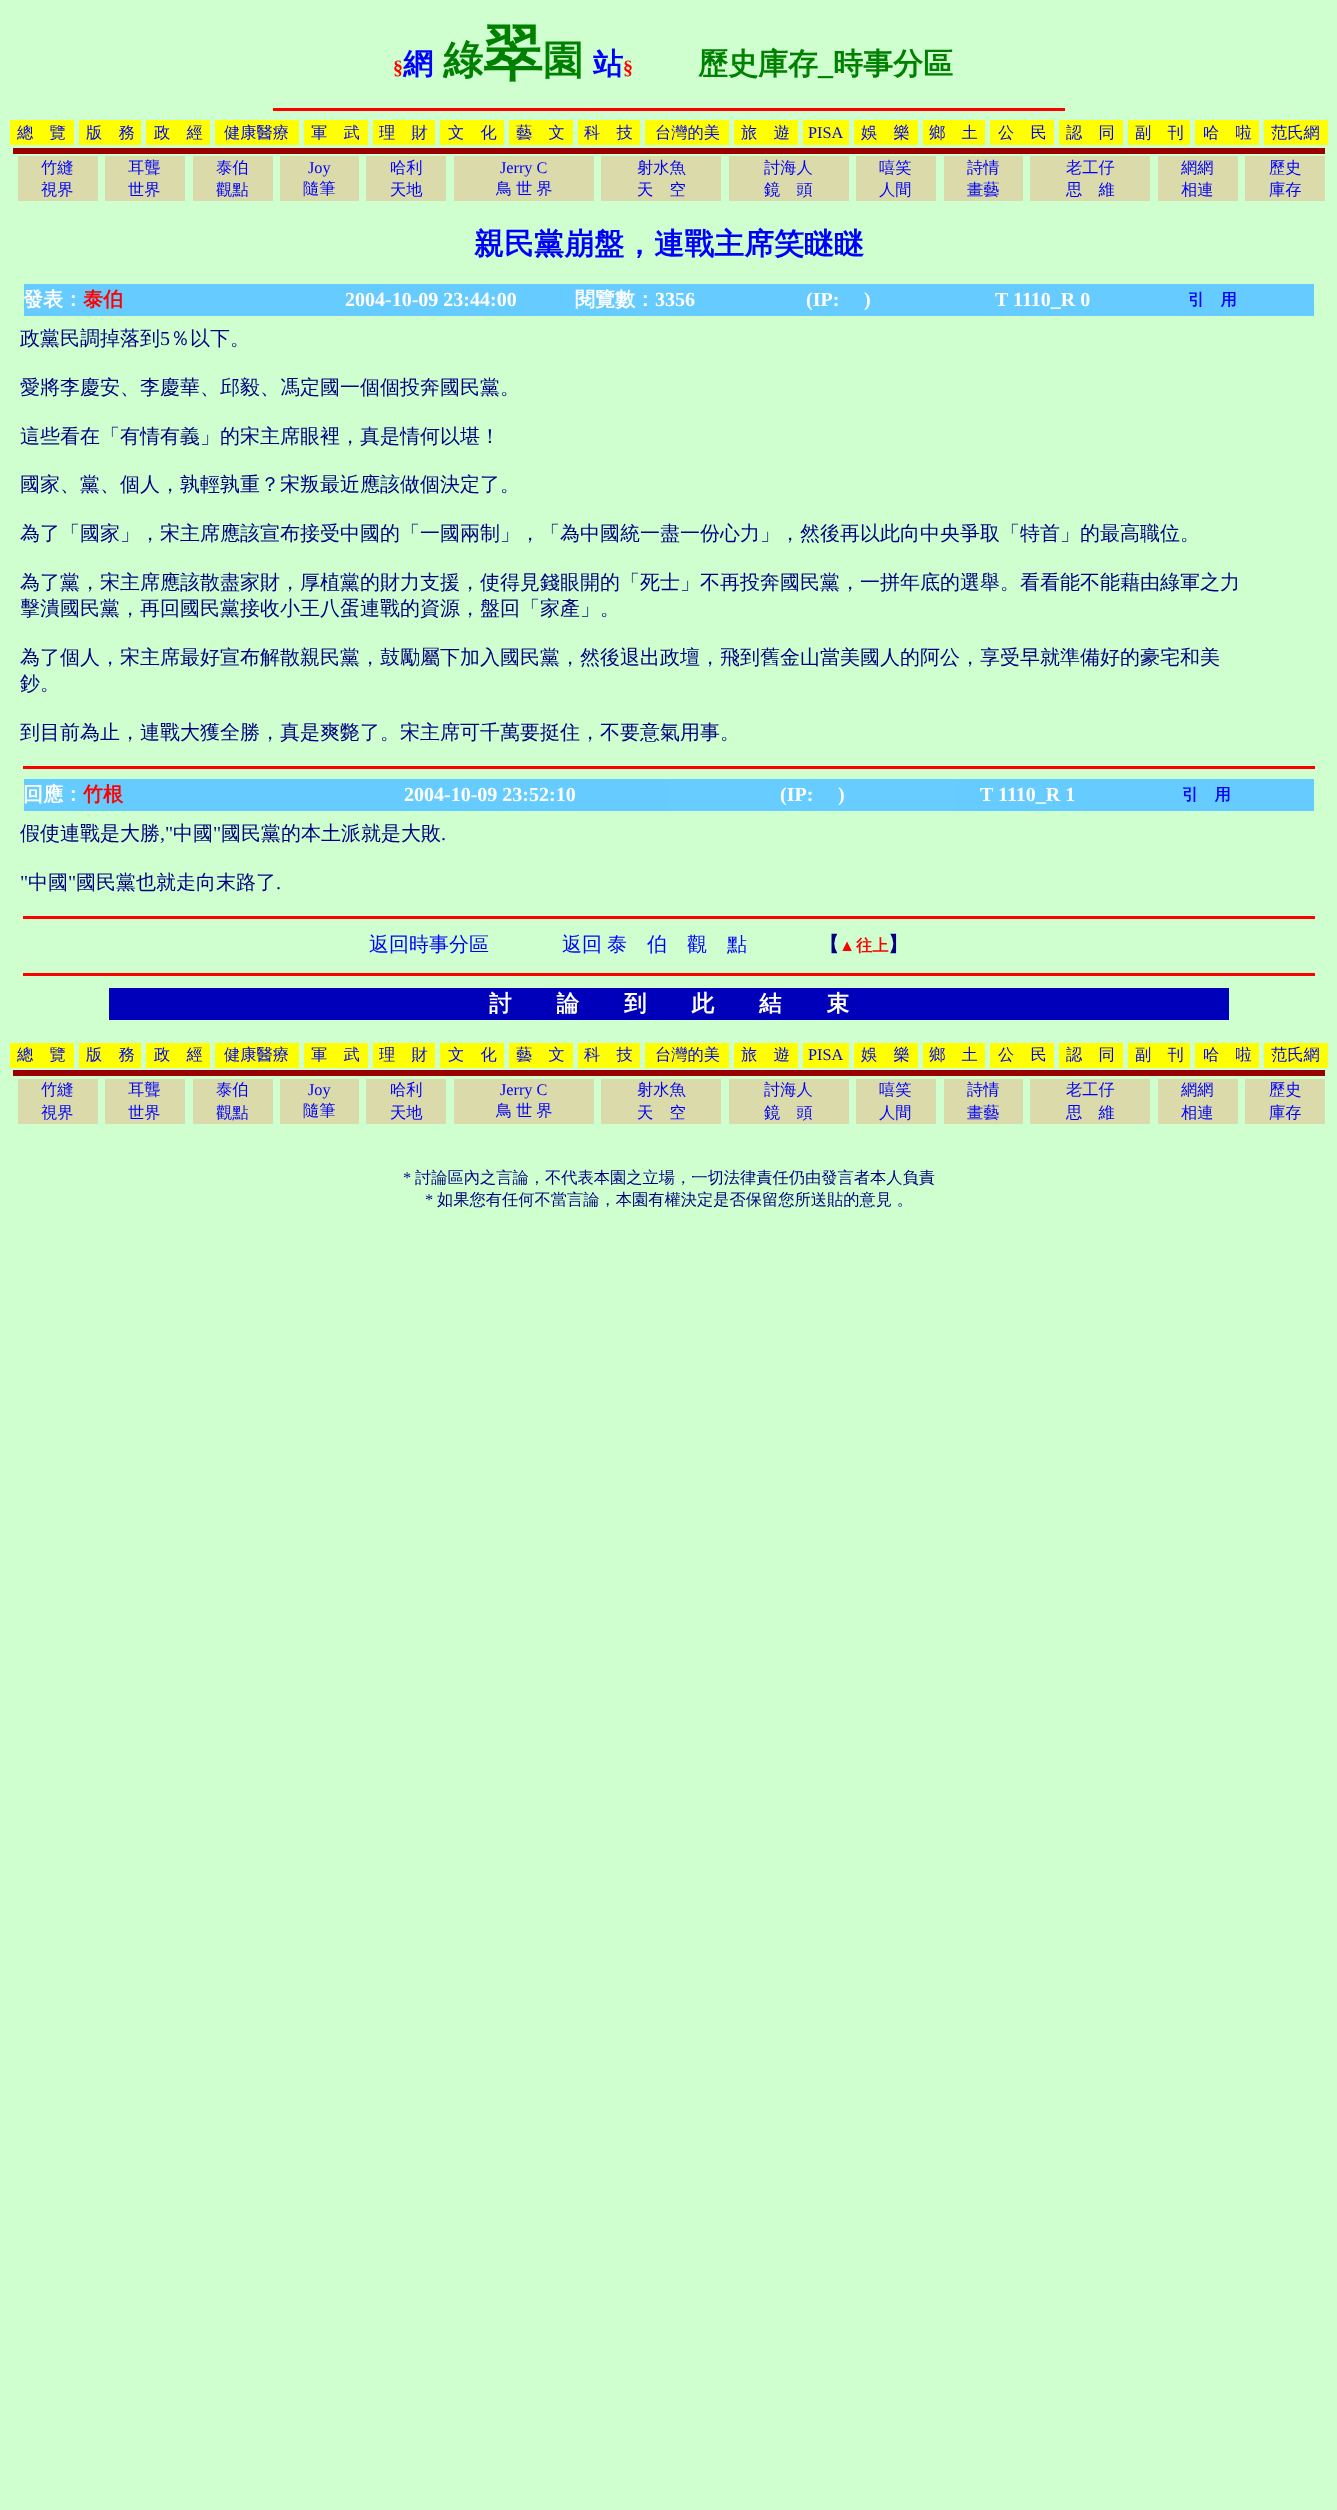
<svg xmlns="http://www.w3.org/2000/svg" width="1337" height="2510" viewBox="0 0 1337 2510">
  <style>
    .t1 { font: bold 20px Liberation Serif; fill: #f00; }
    .t2 { font: bold 30px WenQuanYi Zen Hei; fill: #00f; }
    .t3 { font: bold 40px WenQuanYi Zen Hei; fill: #008000; }
    .t4 { font: bold 60px WenQuanYi Zen Hei; fill: #008000; }
    .t5 { font: bold 30px WenQuanYi Zen Hei; fill: #008000; }
    .t6 { font: bold 30px Liberation Serif; fill: #008000; }
    .t7 { font: 500 16.25px WenQuanYi Zen Hei; fill: #00f; }
    .t8 { font: 16.25px Liberation Serif; fill: #00f; }
    .t9 { font: bold 20px WenQuanYi Zen Hei; fill: #fff; }
    .t10 { font: bold 20px WenQuanYi Zen Hei; fill: #f00; }
    .t11 { font: bold 20px Liberation Serif; fill: #fff; }
    .t12 { font: bold 16.25px WenQuanYi Zen Hei; fill: #00f; }
    .t13 { font: 500 20px WenQuanYi Zen Hei; fill: #000080; }
    .t14 { font: 20px Liberation Serif; fill: #000080; }
    .t15 { font: 500 20px WenQuanYi Zen Hei; fill: #00f; }
    .t16 { font: bold 20px WenQuanYi Zen Hei; fill: #000080; }
    .t17 { font: bold 16.25px Liberation Serif; fill: #f00; }
    .t18 { font: bold 16.25px WenQuanYi Zen Hei; fill: #f00; }
    .t19 { font: bold 22.5px WenQuanYi Zen Hei; fill: #fff; }
    .t20 { font: 16.25px Liberation Serif; fill: #000080; }
    .t21 { font: 500 16.25px WenQuanYi Zen Hei; fill: #000080; }
  </style>
  <rect width="100%" height="100%" fill="#cfffcf"/>
  <text x="393" y="74" class="t1">§</text>
  <text x="403" y="74" class="t2">網</text>
  <text x="443" y="74" class="t3">綠</text>
  <text x="483" y="74" class="t4">翠</text>
  <text x="543" y="74" class="t3">園</text>
  <text x="593" y="74" class="t2">站</text>
  <text x="623" y="74" class="t1">§</text>
  <text x="698" y="74" class="t5">歷史庫存</text>
  <text x="833" y="74" class="t5">時事分區</text>
  <text x="818" y="74" class="t6">_</text>
  <rect x="273" y="108" width="792" height="3" fill="#f00"/>
  <rect x="10" y="120" width="64" height="25" fill="#ff0"/>
  <text x="17" y="138" class="t7">總　覽</text>
  <rect x="79" y="120" width="62" height="25" fill="#ff0"/>
  <text x="86" y="138" class="t7">版　務</text>
  <rect x="146" y="120" width="64" height="25" fill="#ff0"/>
  <text x="154" y="138" class="t7">政　經</text>
  <rect x="215" y="120" width="84" height="25" fill="#ff0"/>
  <text x="224" y="138" class="t7">健康醫療</text>
  <rect x="304" y="120" width="64" height="25" fill="#ff0"/>
  <text x="311" y="138" class="t7">軍　武</text>
  <rect x="373" y="120" width="62" height="25" fill="#ff0"/>
  <text x="379" y="138" class="t7">理　財</text>
  <rect x="440" y="120" width="64" height="25" fill="#ff0"/>
  <text x="448" y="138" class="t7">文　化</text>
  <rect x="509" y="120" width="64" height="25" fill="#ff0"/>
  <text x="516" y="138" class="t7">藝　文</text>
  <rect x="578" y="120" width="62" height="25" fill="#ff0"/>
  <text x="584" y="138" class="t7">科　技</text>
  <rect x="645" y="120" width="84" height="25" fill="#ff0"/>
  <text x="655" y="138" class="t7">台灣的美</text>
  <rect x="734" y="120" width="64" height="25" fill="#ff0"/>
  <text x="741" y="138" class="t7">旅　遊</text>
  <rect x="803" y="120" width="46" height="25" fill="#ff0"/>
  <text x="808" y="138" class="t8">PISA</text>
  <rect x="854" y="120" width="64" height="25" fill="#ff0"/>
  <text x="861" y="138" class="t7">娛　樂</text>
  <rect x="923" y="120" width="62" height="25" fill="#ff0"/>
  <text x="929" y="138" class="t7">鄉　土</text>
  <rect x="990" y="120" width="64" height="25" fill="#ff0"/>
  <text x="998" y="138" class="t7">公　民</text>
  <rect x="1059" y="120" width="64" height="25" fill="#ff0"/>
  <text x="1066" y="138" class="t7">認　同</text>
  <rect x="1128" y="120" width="62" height="25" fill="#ff0"/>
  <text x="1135" y="138" class="t7">副　刊</text>
  <rect x="1195" y="120" width="64" height="25" fill="#ff0"/>
  <text x="1203" y="138" class="t7">哈　啦</text>
  <rect x="1264" y="120" width="64" height="25" fill="#ff0"/>
  <text x="1271" y="138" class="t7">范氏網</text>
  <rect x="13" y="148" width="1312" height="6" fill="#900"/>
  <rect x="18" y="156" width="80" height="45" fill="#dadaaa"/>
  <text x="41" y="173" class="t7">竹縫</text>
  <text x="41" y="195" class="t7">視界</text>
  <rect x="105" y="156" width="80" height="45" fill="#dadaaa"/>
  <text x="128" y="173" class="t7">耳聾</text>
  <text x="128" y="195" class="t7">世界</text>
  <rect x="193" y="156" width="80" height="45" fill="#dadaaa"/>
  <text x="216" y="173" class="t7">泰伯</text>
  <text x="216" y="195" class="t7">觀點</text>
  <rect x="280" y="156" width="79" height="45" fill="#dadaaa"/>
  <text x="308" y="173" class="t8">Joy</text>
  <text x="303" y="194" class="t7">隨筆</text>
  <rect x="366" y="156" width="80" height="45" fill="#dadaaa"/>
  <text x="390" y="173" class="t7">哈利</text>
  <text x="390" y="195" class="t7">天地</text>
  <rect x="454" y="156" width="140" height="45" fill="#dadaaa"/>
  <text x="500" y="173" class="t8">Jerry C</text>
  <text x="496" y="194" word-spacing="-1" class="t7">鳥 世 界</text>
  <rect x="601" y="156" width="120" height="45" fill="#dadaaa"/>
  <text x="637" y="173" class="t7">射水魚</text>
  <text x="637" y="195" class="t7">天　空</text>
  <rect x="729" y="156" width="120" height="45" fill="#dadaaa"/>
  <text x="764" y="173" class="t7">討海人</text>
  <text x="764" y="195" class="t7">鏡　頭</text>
  <rect x="856" y="156" width="80" height="45" fill="#dadaaa"/>
  <text x="879" y="173" class="t7">嘻笑</text>
  <text x="879" y="195" class="t7">人間</text>
  <rect x="944" y="156" width="79" height="45" fill="#dadaaa"/>
  <text x="967" y="173" class="t7">詩情</text>
  <text x="967" y="195" class="t7">畫藝</text>
  <rect x="1030" y="156" width="120" height="45" fill="#dadaaa"/>
  <text x="1066" y="173" class="t7">老工仔</text>
  <text x="1066" y="195" class="t7">思　維</text>
  <rect x="1158" y="156" width="80" height="45" fill="#dadaaa"/>
  <text x="1181" y="173" class="t7">網網</text>
  <text x="1181" y="195" class="t7">相連</text>
  <rect x="1245" y="156" width="80" height="45" fill="#dadaaa"/>
  <text x="1269" y="173" class="t7">歷史</text>
  <text x="1269" y="195" class="t7">庫存</text>
  <text x="474" y="254" class="t2">親民黨崩盤，連戰主席笑瞇瞇</text>
  <rect x="24" y="284" width="1290" height="32" fill="#6cf"/>
  <text x="23" y="306" class="t9">發表：</text>
  <text x="83" y="306" class="t10">泰伯</text>
  <text x="345" y="306" class="t11">2004-10-09 23:44:00</text>
  <text x="575" y="306" class="t9">閱覽數：</text>
  <text x="655" y="306" class="t11">3356</text>
  <text x="806" y="306" class="t11">(IP:</text>
  <text x="864" y="306" class="t11">)</text>
  <text x="995" y="306" class="t11">T 1110_R 0</text>
  <text x="1188" y="305" class="t12">引　用</text>
  <text x="20" y="345" class="t13">政黨民調掉落到</text>
  <text x="160" y="345" class="t14">5</text>
  <text x="170" y="345" class="t13">％以下。</text>
  <text x="20" y="394" class="t13">愛將李慶安、李慶華、邱毅、馮定國一個個投奔國民黨。</text>
  <text x="20" y="443" class="t13">這些看在「有情有義」的宋主席眼裡，真是情何以堪！</text>
  <text x="20" y="491" class="t13">國家、黨、個人，孰輕孰重？宋叛最近應該做個決定了。</text>
  <text x="20" y="540" class="t13">為了「國家」，宋主席應該宣布接受中國的「一國兩制」，「為中國統一盡一份心力」，然後再以此向中央爭取「特首」的最高職位。</text>
  <text x="20" y="589" class="t13">為了黨，宋主席應該散盡家財，厚植黨的財力支援，使得見錢眼開的「死士」不再投奔國民黨，一拼年底的選舉。看看能不能藉由綠軍之力</text>
  <text x="20" y="615" class="t13">擊潰國民黨，再回國民黨接收小王八蛋連戰的資源，盤回「家產」。</text>
  <text x="20" y="664" class="t13">為了個人，宋主席最好宣布解散親民黨，鼓勵屬下加入國民黨，然後退出政壇，飛到舊金山當美國人的阿公，享受早就準備好的豪宅和美</text>
  <text x="20" y="690" class="t13">鈔。</text>
  <text x="20" y="739" class="t13">到目前為止，連戰大獲全勝，真是爽斃了。宋主席可千萬要挺住，不要意氣用事。</text>
  <rect x="23" y="766" width="1292" height="3" fill="#f00"/>
  <rect x="24" y="779" width="645" height="32" fill="#6cf"/>
  <text x="23" y="801" class="t9">回應：</text>
  <text x="83" y="801" class="t10">竹根</text>
  <text x="404" y="801" class="t11">2004-10-09 23:52:10</text>
  <rect x="669" y="779" width="287" height="32" fill="#67ccff"/>
  <text x="780" y="801" class="t11">(IP:</text>
  <text x="838" y="801" class="t11">)</text>
  <rect x="956" y="779" width="358" height="32" fill="#6cf"/>
  <text x="980" y="801" class="t11">T 1110_R 1</text>
  <text x="1182" y="800" class="t12">引　用</text>
  <text x="20" y="840" class="t13">假使連戰是大勝</text>
  <text x="160" y="840" class="t14">,"</text>
  <text x="173" y="840" class="t13">中國</text>
  <text x="213" y="840" class="t14">"</text>
  <text x="221" y="840" class="t13">國民黨的本土派就是大敗</text>
  <text x="441" y="840" class="t14">.</text>
  <text x="20" y="889" class="t14">"</text>
  <text x="28" y="889" class="t13">中國</text>
  <text x="68" y="889" class="t14">"</text>
  <text x="76" y="889" class="t13">國民黨也就走向末路了</text>
  <text x="276" y="889" class="t14">.</text>
  <rect x="23" y="916" width="1292" height="3" fill="#f00"/>
  <text x="369" y="951" class="t15">返回時事分區</text>
  <text x="562" y="951" word-spacing="-1" class="t15">返回 泰　伯　觀　點</text>
  <text x="819" y="951" class="t16">【</text>
  <text x="839" y="951" class="t17">▲</text>
  <text x="856" y="951" class="t18">往上</text>
  <text x="888" y="951" class="t16">】</text>
  <rect x="23" y="973" width="1292" height="3" fill="#f00"/>
  <rect x="109" y="988" width="1120" height="32" fill="#00b"/>
  <text x="489" y="1011" class="t19">討　　論　　到　　此　　結　　束</text>
  <rect x="10" y="1043" width="64" height="25" fill="#ff0"/>
  <text x="17" y="1060" class="t7">總　覽</text>
  <rect x="79" y="1043" width="62" height="25" fill="#ff0"/>
  <text x="86" y="1060" class="t7">版　務</text>
  <rect x="146" y="1043" width="64" height="25" fill="#ff0"/>
  <text x="154" y="1060" class="t7">政　經</text>
  <rect x="215" y="1043" width="84" height="25" fill="#ff0"/>
  <text x="224" y="1060" class="t7">健康醫療</text>
  <rect x="304" y="1043" width="64" height="25" fill="#ff0"/>
  <text x="311" y="1060" class="t7">軍　武</text>
  <rect x="373" y="1043" width="62" height="25" fill="#ff0"/>
  <text x="379" y="1060" class="t7">理　財</text>
  <rect x="440" y="1043" width="64" height="25" fill="#ff0"/>
  <text x="448" y="1060" class="t7">文　化</text>
  <rect x="509" y="1043" width="64" height="25" fill="#ff0"/>
  <text x="516" y="1060" class="t7">藝　文</text>
  <rect x="578" y="1043" width="62" height="25" fill="#ff0"/>
  <text x="584" y="1060" class="t7">科　技</text>
  <rect x="645" y="1043" width="84" height="25" fill="#ff0"/>
  <text x="655" y="1060" class="t7">台灣的美</text>
  <rect x="734" y="1043" width="64" height="25" fill="#ff0"/>
  <text x="741" y="1060" class="t7">旅　遊</text>
  <rect x="803" y="1043" width="46" height="25" fill="#ff0"/>
  <text x="808" y="1060" class="t8">PISA</text>
  <rect x="854" y="1043" width="64" height="25" fill="#ff0"/>
  <text x="861" y="1060" class="t7">娛　樂</text>
  <rect x="923" y="1043" width="62" height="25" fill="#ff0"/>
  <text x="929" y="1060" class="t7">鄉　土</text>
  <rect x="990" y="1043" width="64" height="25" fill="#ff0"/>
  <text x="998" y="1060" class="t7">公　民</text>
  <rect x="1059" y="1043" width="64" height="25" fill="#ff0"/>
  <text x="1066" y="1060" class="t7">認　同</text>
  <rect x="1128" y="1043" width="62" height="25" fill="#ff0"/>
  <text x="1135" y="1060" class="t7">副　刊</text>
  <rect x="1195" y="1043" width="64" height="25" fill="#ff0"/>
  <text x="1203" y="1060" class="t7">哈　啦</text>
  <rect x="1264" y="1043" width="64" height="25" fill="#ff0"/>
  <text x="1271" y="1060" class="t7">范氏網</text>
  <rect x="13" y="1070" width="1312" height="6" fill="#900"/>
  <rect x="18" y="1079" width="80" height="45" fill="#dadaaa"/>
  <text x="41" y="1095" class="t7">竹縫</text>
  <text x="41" y="1118" class="t7">視界</text>
  <rect x="105" y="1079" width="80" height="45" fill="#dadaaa"/>
  <text x="128" y="1095" class="t7">耳聾</text>
  <text x="128" y="1118" class="t7">世界</text>
  <rect x="193" y="1079" width="80" height="45" fill="#dadaaa"/>
  <text x="216" y="1095" class="t7">泰伯</text>
  <text x="216" y="1118" class="t7">觀點</text>
  <rect x="280" y="1079" width="79" height="45" fill="#dadaaa"/>
  <text x="308" y="1095" class="t8">Joy</text>
  <text x="303" y="1116" class="t7">隨筆</text>
  <rect x="366" y="1079" width="80" height="45" fill="#dadaaa"/>
  <text x="390" y="1095" class="t7">哈利</text>
  <text x="390" y="1118" class="t7">天地</text>
  <rect x="454" y="1079" width="140" height="45" fill="#dadaaa"/>
  <text x="500" y="1095" class="t8">Jerry C</text>
  <text x="496" y="1116" word-spacing="-1" class="t7">鳥 世 界</text>
  <rect x="601" y="1079" width="120" height="45" fill="#dadaaa"/>
  <text x="637" y="1095" class="t7">射水魚</text>
  <text x="637" y="1118" class="t7">天　空</text>
  <rect x="729" y="1079" width="120" height="45" fill="#dadaaa"/>
  <text x="764" y="1095" class="t7">討海人</text>
  <text x="764" y="1118" class="t7">鏡　頭</text>
  <rect x="856" y="1079" width="80" height="45" fill="#dadaaa"/>
  <text x="879" y="1095" class="t7">嘻笑</text>
  <text x="879" y="1118" class="t7">人間</text>
  <rect x="944" y="1079" width="79" height="45" fill="#dadaaa"/>
  <text x="967" y="1095" class="t7">詩情</text>
  <text x="967" y="1118" class="t7">畫藝</text>
  <rect x="1030" y="1079" width="120" height="45" fill="#dadaaa"/>
  <text x="1066" y="1095" class="t7">老工仔</text>
  <text x="1066" y="1118" class="t7">思　維</text>
  <rect x="1158" y="1079" width="80" height="45" fill="#dadaaa"/>
  <text x="1181" y="1095" class="t7">網網</text>
  <text x="1181" y="1118" class="t7">相連</text>
  <rect x="1245" y="1079" width="80" height="45" fill="#dadaaa"/>
  <text x="1269" y="1095" class="t7">歷史</text>
  <text x="1269" y="1118" class="t7">庫存</text>
  <text x="403" y="1183" class="t20">*</text>
  <text x="415" y="1183" class="t21">討論區內之言論，不代表本園之立場，一切法律責任仍由發言者本人負責</text>
  <text x="425" y="1205" class="t20">*</text>
  <text x="437" y="1205" class="t21">如果您有任何不當言論，本園有權決定是否保留您所送貼的意見 。</text>
</svg>
